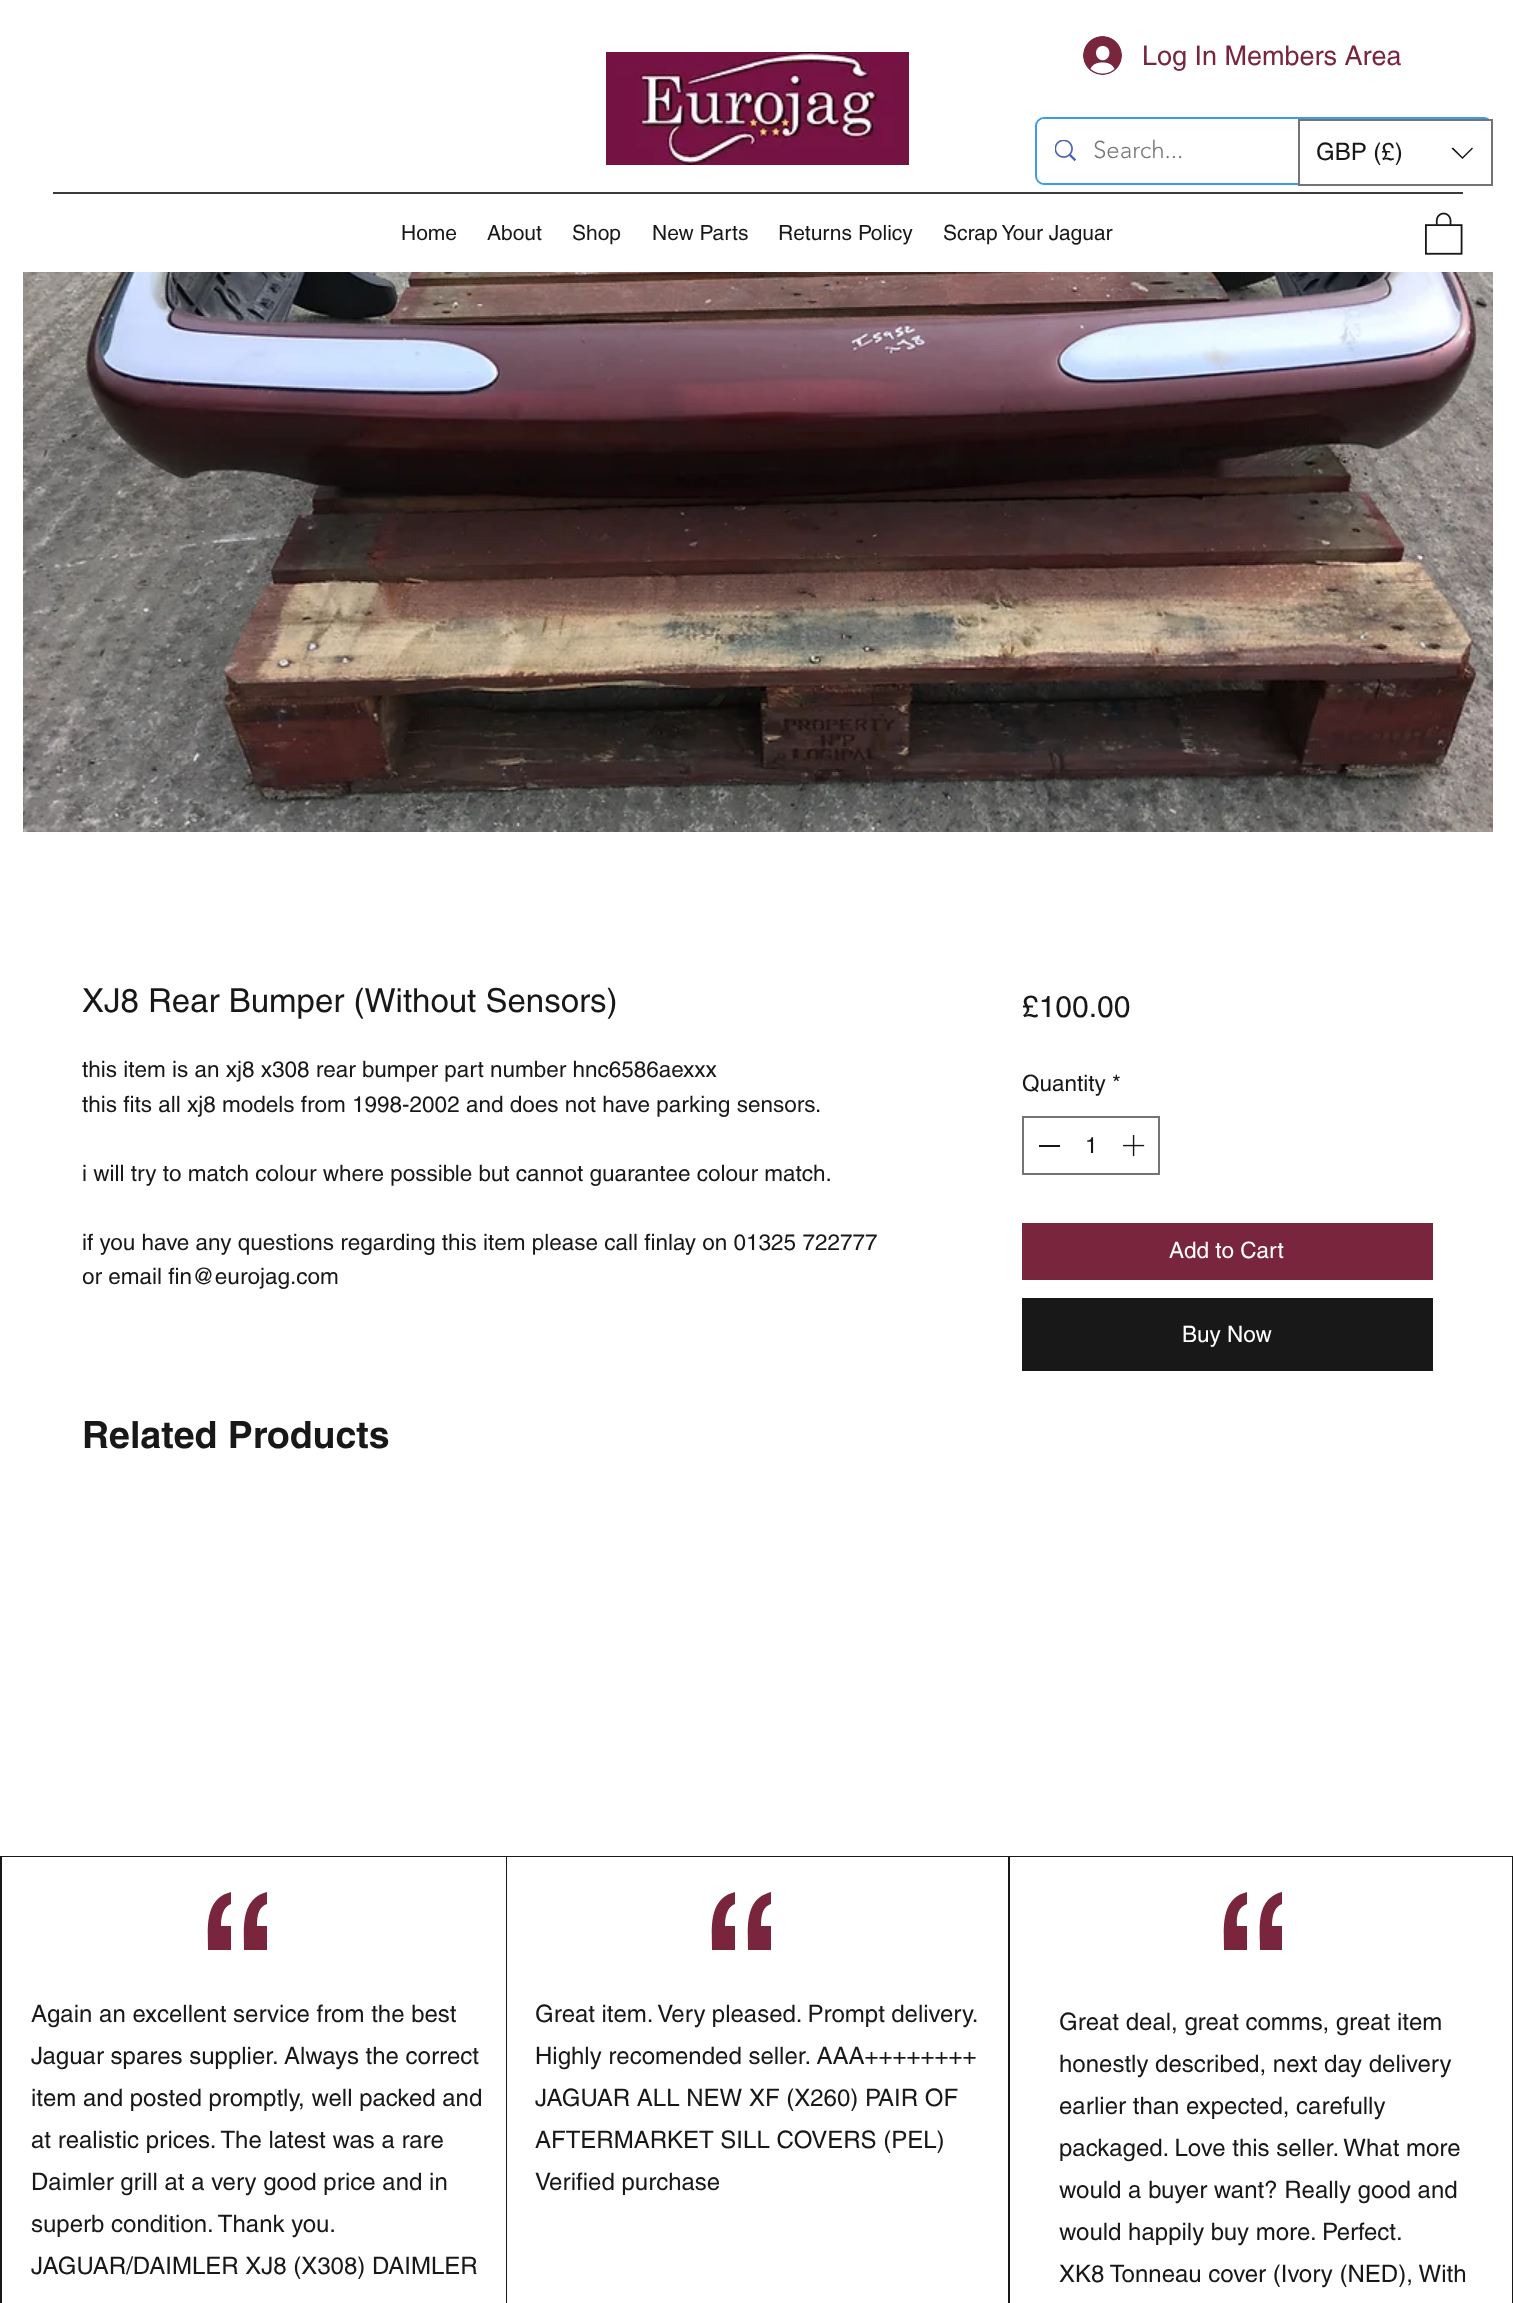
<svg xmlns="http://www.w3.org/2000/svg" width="1513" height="2303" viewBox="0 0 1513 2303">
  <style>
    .t1 { font: 300 24px 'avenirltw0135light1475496'; fill: #787878; }
    .t2 { font: 27px helvetica; fill: #79253d; }
    .t3 { font: 24px helvetica; fill: #181818; }
    .t4 { font: 21px helvetica; fill: #181818; }
    .t5 { font: 33px helvetica; fill: #181818; }
    .t6 { font: 22.5px helvetica; fill: #181818; }
    .t7 { font: 30px helvetica; fill: #181818; }
    .t8 { font: 22.5px helvetica; fill: #fff; }
    .t9 { font: bold 37.5px helvetica; fill: #181818; }
  </style>
  <defs>
    <clipPath id="clip1"><rect x="83" y="1052" width="819" height="241"/></clipPath>
  </defs>
  <rect width="100%" height="100%" fill="#fff"/>
  <image x="606" y="52" width="303" height="113" href="images/1.png"/>
  <rect x="1036" y="118" width="456" height="66" rx="8" fill="none" stroke="#3d9be9" stroke-width="2"/>
  <rect x="1037" y="119" width="454" height="64" rx="8" fill="#fff"/>
  <image x="1055" y="140" width="21" height="21" href="images/2.png"/>
  <text x="1093" y="158" class="t1">Search...</text>
  <image x="1083" y="36" width="39" height="39" href="images/3.png"/>
  <text x="1142" y="65" class="t2">Log In Members Area</text>
  <rect x="1299" y="120" width="193" height="65" fill="#fff" stroke="#747474" stroke-width="2"/>
  <text x="1316" y="160" class="t3">GBP (£)</text>
  <path d="M1472 147.5L1473 148.5L1462.5 159L1451.5 148.5L1453 147.5L1462.5 157Z" fill="#181818" fill-rule="evenodd"/>
  <rect x="53" y="192" width="1410" height="2" fill="#3b3b3b"/>
  <text x="401" y="240" class="t4">Home</text>
  <text x="487" y="240" class="t4">About</text>
  <text x="572" y="240" class="t4">Shop</text>
  <text x="652" y="240" class="t4">New Parts</text>
  <text x="778" y="240" class="t4">Returns Policy</text>
  <text x="943" y="240" class="t4">Scrap Your Jaguar</text>
  <image x="1425" y="212" width="38" height="43" href="images/4.png"/>
  <image x="23" y="272" width="1470" height="560" href="images/5.png"/>
  <text x="82" y="1012" class="t5">XJ8 Rear Bumper (Without Sensors)</text>
  <text x="82" y="1077" class="t6">this item is an xj8 x308 rear bumper part number hnc6586aexxx</text>
  <text x="82" y="1112" class="t6">this fits all xj8 models from 1998-2002 and does not have parking sensors.</text>
  <text x="82" y="1181" class="t6">i will try to match colour where possible but cannot guarantee colour match.</text>
  <text x="82" y="1250" class="t6">if you have any questions regarding this item please call finlay on 01325 722777</text>
  <g clip-path="url(#clip1)">
    <text x="82" y="1284" class="t6">or email fin@eurojag.com</text>
  </g>
  <text x="1022" y="1017" class="t7">£100.00</text>
  <text x="1022" y="1091" class="t6">Quantity *</text>
  <rect x="1023" y="1117" width="136" height="57" fill="none" stroke="#747474" stroke-width="2"/>
  <rect x="1039" y="1145" width="21" height="2" fill="#181818"/>
  <text x="1085" y="1153" class="t6">1</text>
  <image x="1123" y="1135" width="22" height="22" href="images/6.png"/>
  <rect x="1022" y="1223" width="411" height="57" fill="#79253d"/>
  <text x="1169" y="1258" class="t8">Add to Cart</text>
  <rect x="1022" y="1298" width="411" height="73" fill="#181818"/>
  <text x="1182" y="1342" class="t8">Buy Now</text>
  <text x="82" y="1448" class="t9">Related Products</text>
  <rect x="0" y="1856" width="1513" height="447" fill="#181818"/>
  <rect x="2" y="1857" width="504" height="446" fill="#fff"/>
  <path d="M208 1950C208 1928 204 1899 231 1892V1904C224 1907 221 1914 221 1926H231V1950ZM244 1950C244 1928 240 1899 267 1892V1904C259 1907 257 1914 257 1926H267V1950Z" fill="#79253d"/>
  <text x="31" y="2022" class="t3">Again an excellent service from the best</text>
  <text x="31" y="2064" class="t3">Jaguar spares supplier. Always the correct</text>
  <text x="31" y="2106" class="t3">item and posted promptly, well packed and</text>
  <text x="31" y="2148" class="t3">at realistic prices. The latest was a rare</text>
  <text x="31" y="2190" class="t3">Daimler grill at a very good price and in</text>
  <text x="31" y="2232" class="t3">superb condition. Thank you.</text>
  <text x="31" y="2274" class="t3">JAGUAR/DAIMLER XJ8 (X308) DAIMLER</text>
  <rect x="507" y="1857" width="501" height="446" fill="#fff"/>
  <path d="M712 1950C712 1928 708 1899 735 1892V1904C728 1907 725 1914 725 1926H735V1950ZM748 1950C748 1928 744 1899 771 1892V1904C763 1907 761 1914 761 1926H771V1950Z" fill="#79253d"/>
  <text x="535" y="2022" word-spacing="-0.25" class="t3">Great item. Very pleased. Prompt delivery.</text>
  <text x="535" y="2064" class="t3">Highly recomended seller. AAA++++++++</text>
  <text x="535" y="2106" class="t3">JAGUAR ALL NEW XF (X260) PAIR OF</text>
  <text x="535" y="2148" class="t3">AFTERMARKET SILL COVERS (PEL)</text>
  <text x="535" y="2190" class="t3">Verified purchase</text>
  <rect x="1010" y="1857" width="502" height="446" fill="#fff"/>
  <path d="M1224 1950C1224 1928 1220 1899 1247 1892V1904C1239 1907 1236 1914 1237 1926H1247V1950ZM1260 1950C1260 1928 1255 1899 1282 1892V1904C1275 1907 1272 1914 1272 1926H1282V1950Z" fill="#79253d"/>
  <text x="1059" y="2030" class="t3">Great deal, great comms, great item</text>
  <text x="1059" y="2072" class="t3">honestly described, next day delivery</text>
  <text x="1059" y="2114" class="t3">earlier than expected, carefully</text>
  <text x="1059" y="2156" class="t3">packaged. Love this seller. What more</text>
  <text x="1059" y="2198" class="t3">would a buyer want? Really good and</text>
  <text x="1059" y="2240" class="t3">would happily buy more. Perfect.</text>
  <text x="1059" y="2282" class="t3">XK8 Tonneau cover (Ivory (NED), With</text>
</svg>
